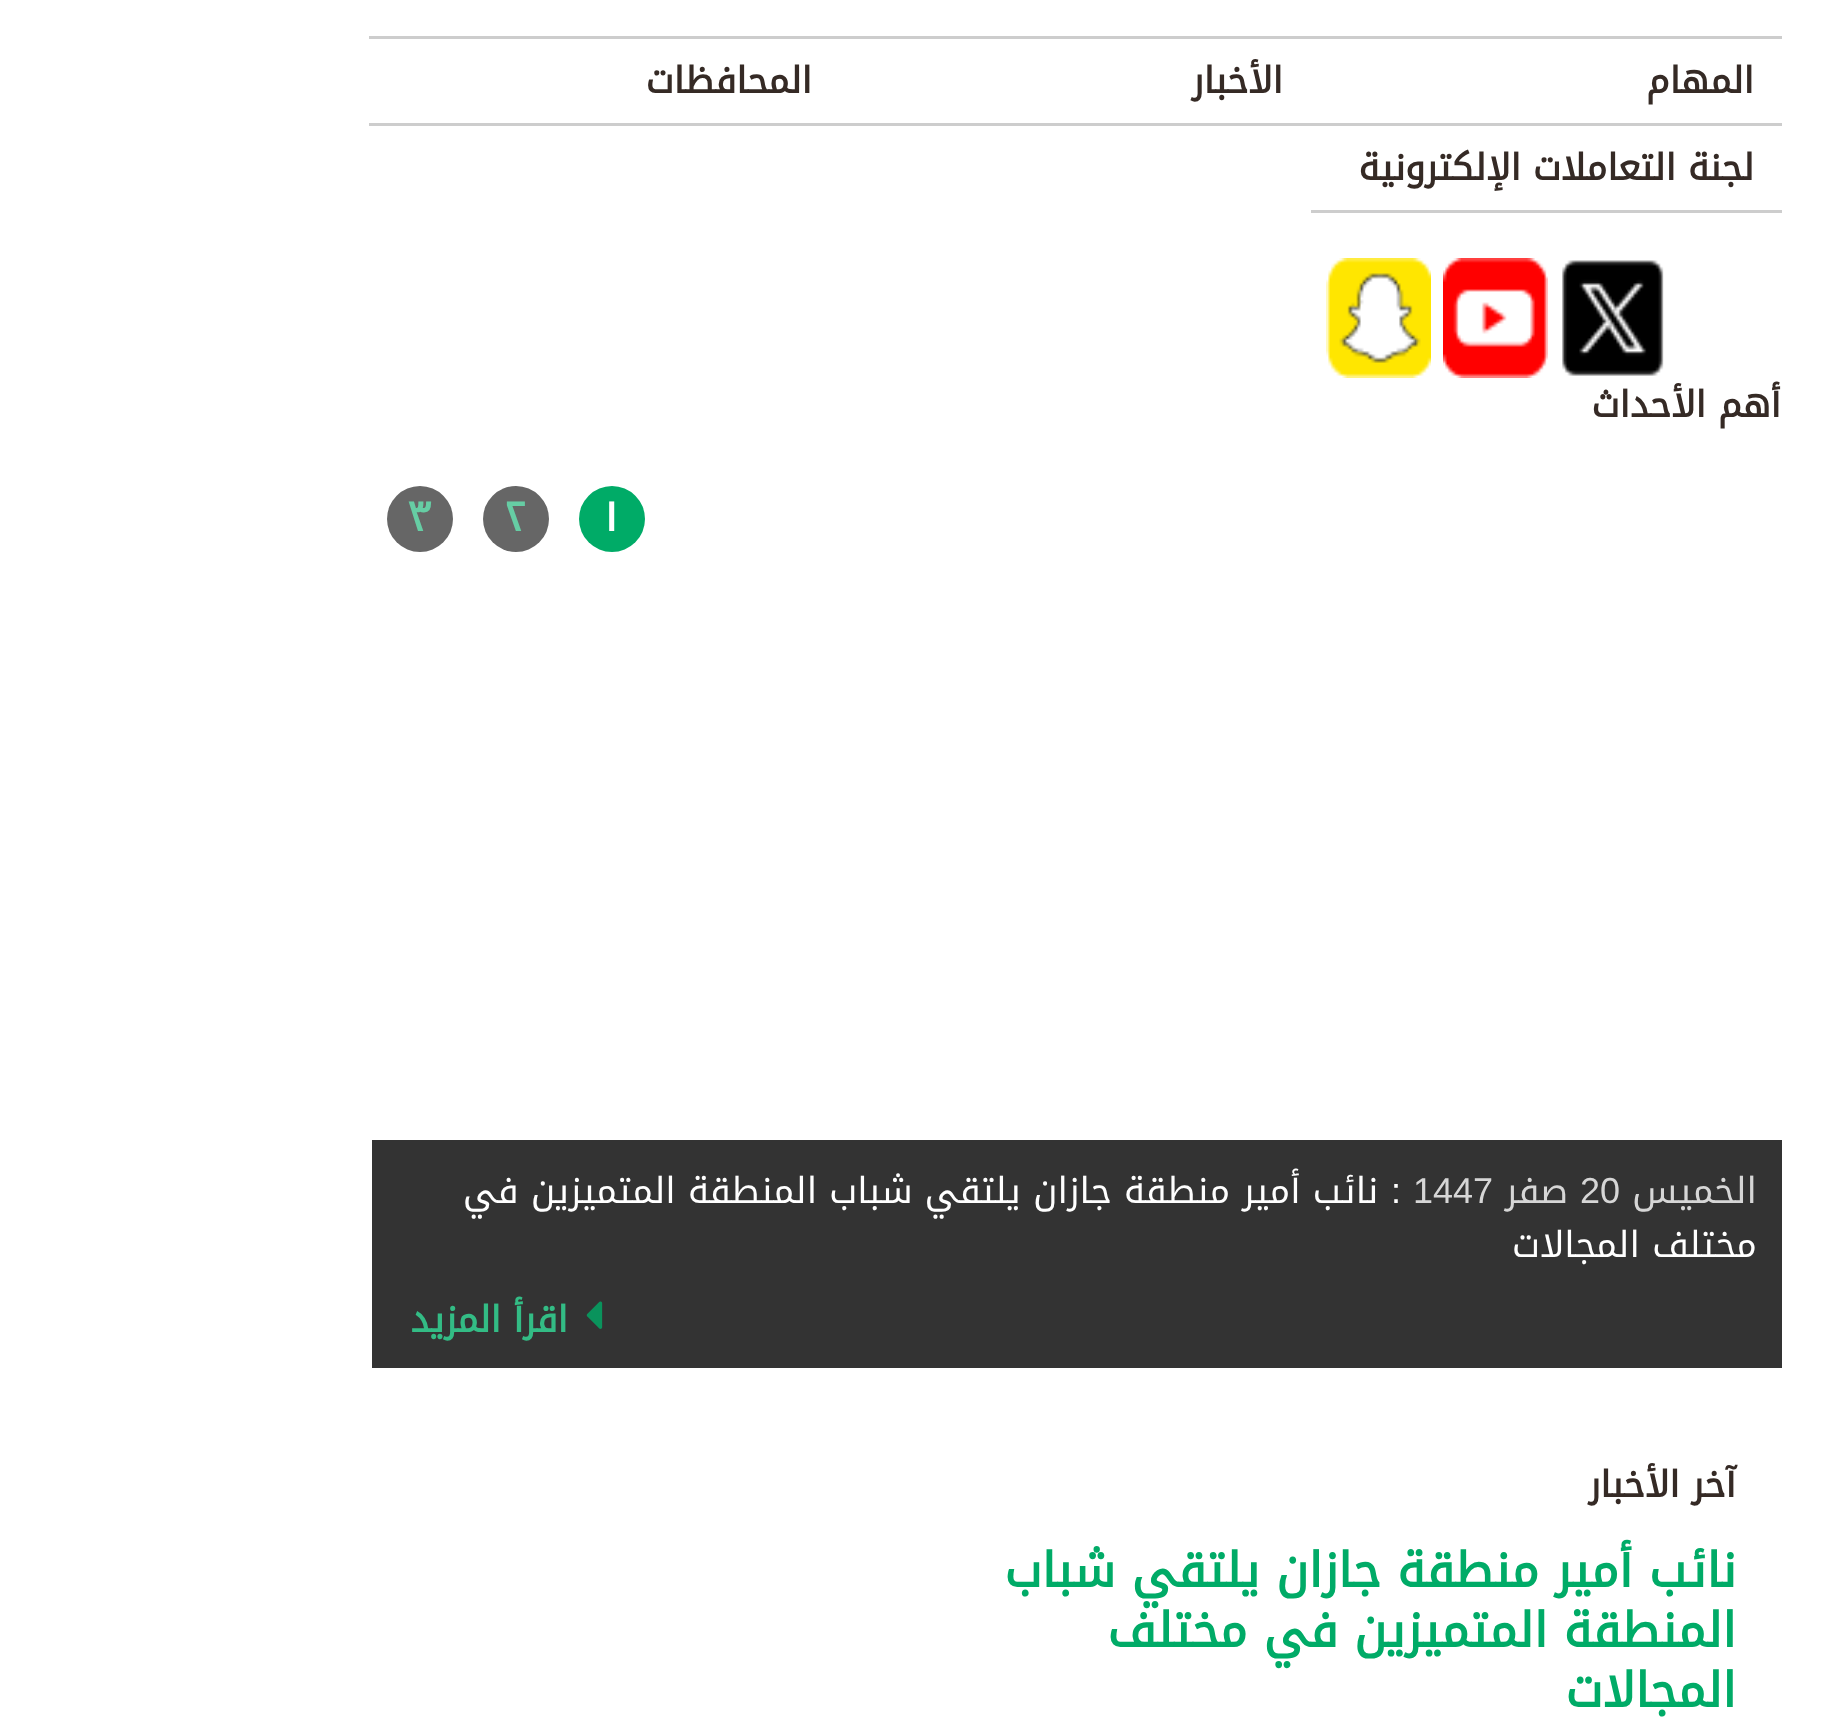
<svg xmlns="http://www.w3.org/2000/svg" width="1825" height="1733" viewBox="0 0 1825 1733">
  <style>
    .t1 { font: bold 36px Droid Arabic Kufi; direction: rtl; fill: #352a25; }
    .t2 { font: bold 42px Droid Arabic Kufi; fill: #fff; }
    .t3 { font: bold 42px Droid Arabic Kufi; fill: #66cda4; }
    .t4 { font: 36px Droid Arabic Kufi; direction: rtl; fill: #d6d6d6; }
    .t5 { font: 36px Liberation Sans; fill: #d6d6d6; }
    .t6 { font: 36px Liberation Sans; fill: #fff; }
    .t7 { font: 36px Droid Arabic Kufi; direction: rtl; fill: #fff; }
    .t8 { font: bold 36px Droid Arabic Kufi; direction: rtl; fill: #33bc85; }
    .t9 { font: bold 48px Droid Arabic Kufi; direction: rtl; fill: #00ab67; }
  </style>
  <rect width="100%" height="100%" fill="#fff"/>
  <rect x="369" y="36" width="1413" height="3" fill="#cdcdcd"/>
  <rect x="369" y="123" width="1413" height="3" fill="#cdcdcd"/>
  <text x="1754" y="93" class="t1">المهام</text>
  <text x="1283" y="93" class="t1">الأخبار</text>
  <text x="812" y="93" class="t1">المحافظات</text>
  <rect x="1311" y="210" width="471" height="3" fill="#cdcdcd"/>
  <text x="1754" y="180" class="t1">لجنة التعاملات الإلكترونية</text>
  <image x="1562" y="260" width="102" height="116" href="images/1.png"/>
  <image x="1443" y="258" width="105" height="120" href="images/2.png"/>
  <image x="1326" y="258" width="105" height="120" href="images/3.png"/>
  <text x="1781" y="417" class="t1">أهم الأحداث</text>
  <circle cx="612" cy="519" r="33" fill="#00ab67"/>
  <text x="605" y="531" class="t2">١</text>
  <circle cx="516" cy="519" r="33" fill="#666"/>
  <text x="505" y="531" class="t3">٢</text>
  <circle cx="420" cy="519" r="33" fill="#666"/>
  <text x="407" y="531" class="t3">٣</text>
  <rect x="372" y="1140" width="1410" height="228" fill="#333"/>
  <text x="1757" y="1203" class="t4">الخميس</text>
  <text x="1580" y="1203" class="t5">20</text>
  <text x="1568" y="1203" class="t4">صفر</text>
  <text x="1413" y="1203" class="t5">1447</text>
  <text x="1391" y="1203" class="t6">:</text>
  <text x="1378" y="1203" class="t7">نائب أمير منطقة جازان يلتقي شباب المنطقة المتميزين في</text>
  <text x="1757" y="1257" class="t7">مختلف المجالات</text>
  <image x="586" y="1301" width="17" height="28" href="images/4.png"/>
  <text x="568" y="1332" class="t8">اقرأ المزيد</text>
  <text x="1736" y="1497" class="t1">آخر الأخبار</text>
  <text x="1736" y="1587" class="t9">نائب أمير منطقة جازان يلتقي شباب</text>
  <text x="1736" y="1647" class="t9">المنطقة المتميزين في مختلف</text>
  <text x="1736" y="1707" class="t9">المجالات</text>
</svg>
